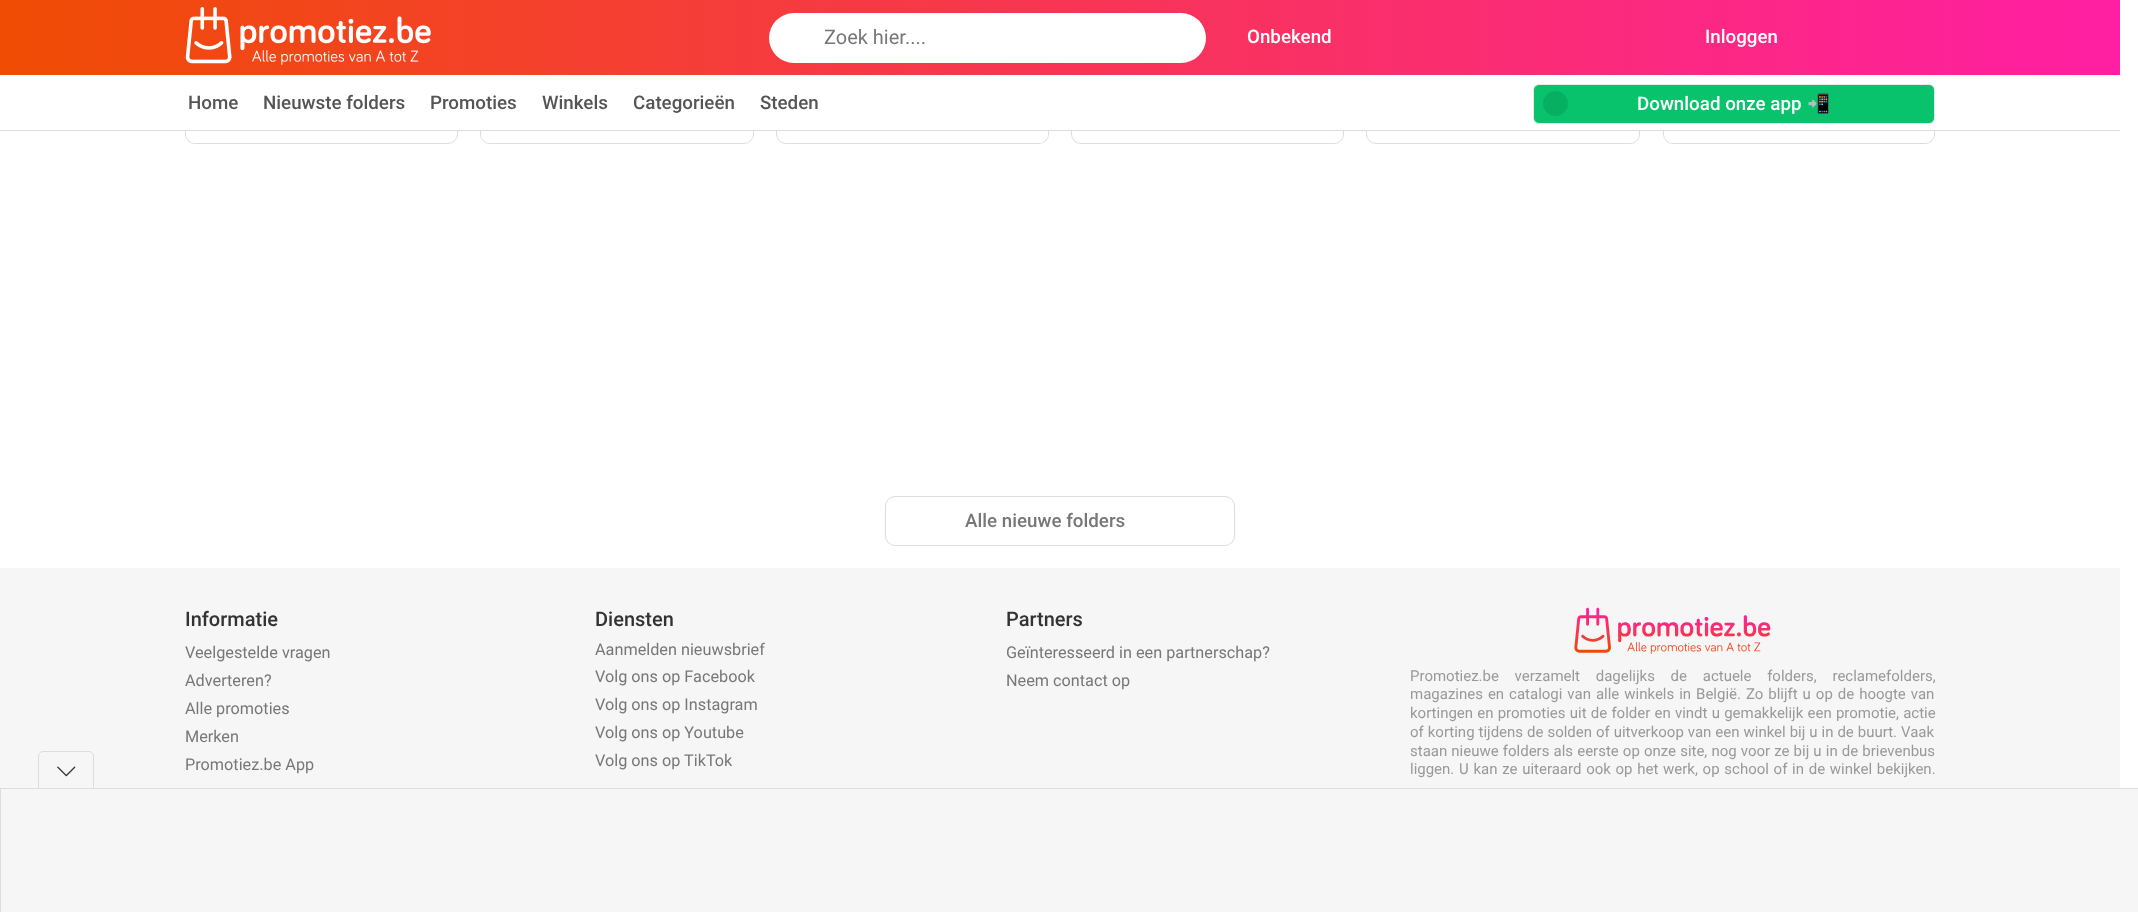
<svg xmlns="http://www.w3.org/2000/svg" width="2138" height="912" viewBox="0 0 2138 912">
  <style>
    .t1 { font: 20px Roboto; fill: #777; }
    .t2 { font: 500 18.75px Roboto; fill: #fff; }
    .t3 { font: 500 18.75px Roboto; fill: #555; }
    .t4 { font: 18.75px Noto Color Emoji; fill: #fff; }
    .t5 { font: 500 18.75px Roboto; fill: #777; }
    .t6 { font: 500 20px Roboto; fill: #333; }
    .t7 { font: 16.25px Roboto; fill: #777; }
    .t8 { font: 15px Roboto; fill: #999; }
  </style>
  <defs>
    <linearGradient id="g1" gradientUnits="userSpaceOnUse" x1="2120" y1="65" x2="0" y2="65"><stop offset="0" stop-color="#ff1fa3"/><stop offset="1" stop-color="#f04c03"/></linearGradient>
  </defs>
  <rect width="100%" height="100%" fill="#fff"/>
  <rect x="185.5" y="-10.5" width="272" height="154" rx="9.5" fill="none" stroke="#ddd"/>
  <path d="M186 43H456V133C456 138.5 451.5 143 446 143H196C190.5 143 186 138.5 186 133Z" fill="#fff"/>
  <rect x="480.5" y="-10.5" width="273" height="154" rx="9.5" fill="none" stroke="#ddd"/>
  <path d="M481 43H753V133C753 138.5 748.5 143 743 143H491C485.5 143 481 138.5 481 133Z" fill="#fff"/>
  <rect x="776.5" y="-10.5" width="272" height="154" rx="9.5" fill="none" stroke="#ddd"/>
  <path d="M778 43H1048V133C1048 138.5 1043.5 143 1038 143H788C782.5 143 778 138.5 778 133Z" fill="#fff"/>
  <rect x="1071.5" y="-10.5" width="272" height="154" rx="9.5" fill="none" stroke="#ddd"/>
  <path d="M1073 43H1343V133C1343 138.5 1338.5 143 1333 143H1083C1077.5 143 1073 138.5 1073 133Z" fill="#fff"/>
  <rect x="1366.5" y="-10.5" width="273" height="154" rx="9.5" fill="none" stroke="#ddd"/>
  <path d="M1368 43H1639V133C1639 138.5 1634.5 143 1629 143H1378C1372.5 143 1368 138.5 1368 133Z" fill="#fff"/>
  <rect x="1663.5" y="-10.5" width="271" height="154" rx="9.5" fill="none" stroke="#ddd"/>
  <path d="M1664 43H1934V133C1934 138.5 1929.5 143 1924 143H1674C1668.5 143 1664 138.5 1664 133Z" fill="#fff"/>
  <rect x="0" y="1" width="2120" height="130" fill="#ddd" filter="blur(0.5px)"/>
  <rect x="0" y="0" width="2120" height="75" fill="url(#g1)"/>
  <image x="185" y="7" width="246" height="58" href="images/1.png"/>
  <rect x="769" y="13" width="437" height="50" rx="25" fill="#fff"/>
  <text x="824" y="44" class="t1">Zoek hier....</text>
  <text x="1247" y="43" class="t2">Onbekend</text>
  <text x="1705" y="43" class="t2">Inloggen</text>
  <rect x="0" y="75" width="2120" height="55" fill="#fff"/>
  <text x="188" y="109" class="t3">Home</text>
  <text x="263" y="109" class="t3">Nieuwste folders</text>
  <text x="430" y="109" class="t3">Promoties</text>
  <text x="542" y="109" class="t3">Winkels</text>
  <text x="633" y="109" class="t3">Categorieën</text>
  <text x="760" y="109" class="t3">Steden</text>
  <rect x="1533.5" y="84.5" width="401" height="39" rx="5.5" fill="#08c36c" stroke="#eaeaea"/>
  <circle cx="1555.5" cy="103.5" r="12.5" fill="#07b061"/>
  <text x="1637" y="110" class="t2">Download onze app</text>
  <text x="1807" y="110" class="t4">📲</text>
  <rect x="885.5" y="496.5" width="349" height="49" rx="9.5" fill="none" stroke="#ddd"/>
  <text x="965" y="527" class="t5">Alle nieuwe folders</text>
  <rect x="0.5" y="788.5" width="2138" height="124" fill="#f6f6f6" stroke="#ddd"/>
  <rect x="0" y="568" width="2120" height="220" fill="#f6f6f6"/>
  <path d="M43 751.5H89C91.5 751.5 93.5 753.5 93.5 756V788.5H38.5V756C38.5 753.5 40.5 751.5 43 751.5Z" fill="#f6f6f6" stroke="#ddd"/>
  <image x="57" y="766" width="19" height="11" href="images/2.png"/>
  <text x="185" y="626" class="t6">Informatie</text>
  <text x="185" y="658" class="t7">Veelgestelde vragen</text>
  <text x="185" y="686" class="t7">Adverteren?</text>
  <text x="185" y="714" class="t7">Alle promoties</text>
  <text x="185" y="742" class="t7">Merken</text>
  <text x="185" y="770" class="t7">Promotiez.be App</text>
  <text x="595" y="626" class="t6">Diensten</text>
  <text x="595" y="655" class="t7">Aanmelden nieuwsbrief</text>
  <text x="595" y="682" class="t7">Volg ons op Facebook</text>
  <text x="595" y="710" class="t7">Volg ons op Instagram</text>
  <text x="595" y="738" class="t7">Volg ons op Youtube</text>
  <text x="595" y="766" class="t7">Volg ons op TikTok</text>
  <text x="1006" y="626" class="t6">Partners</text>
  <text x="1006" y="658" class="t7">Geïnteresseerd in een partnerschap?</text>
  <text x="1006" y="686" class="t7">Neem contact op</text>
  <image x="1574" y="607" width="197" height="47" href="images/3.png"/>
  <text x="1410" y="681" word-spacing="12" class="t8">Promotiez.be verzamelt dagelijks de actuele folders, reclamefolders,</text>
  <text x="1410" y="699" word-spacing="1.25" class="t8">magazines en catalogi van alle winkels in België. Zo blijft u op de hoogte van</text>
  <text x="1410" y="718" word-spacing="0.5" class="t8">kortingen en promoties uit de folder en vindt u gemakkelijk een promotie, actie</text>
  <text x="1410" y="737" word-spacing="0.25" class="t8">of korting tijdens de solden of uitverkoop van een winkel bij u in de buurt. Vaak</text>
  <text x="1410" y="756" word-spacing="0.4" class="t8">staan nieuwe folders als eerste op onze site, nog voor ze bij u in de brievenbus</text>
  <text x="1410" y="774" word-spacing="1" class="t8">liggen. U kan ze uiteraard ook op het werk, op school of in de winkel bekijken.</text>
</svg>
